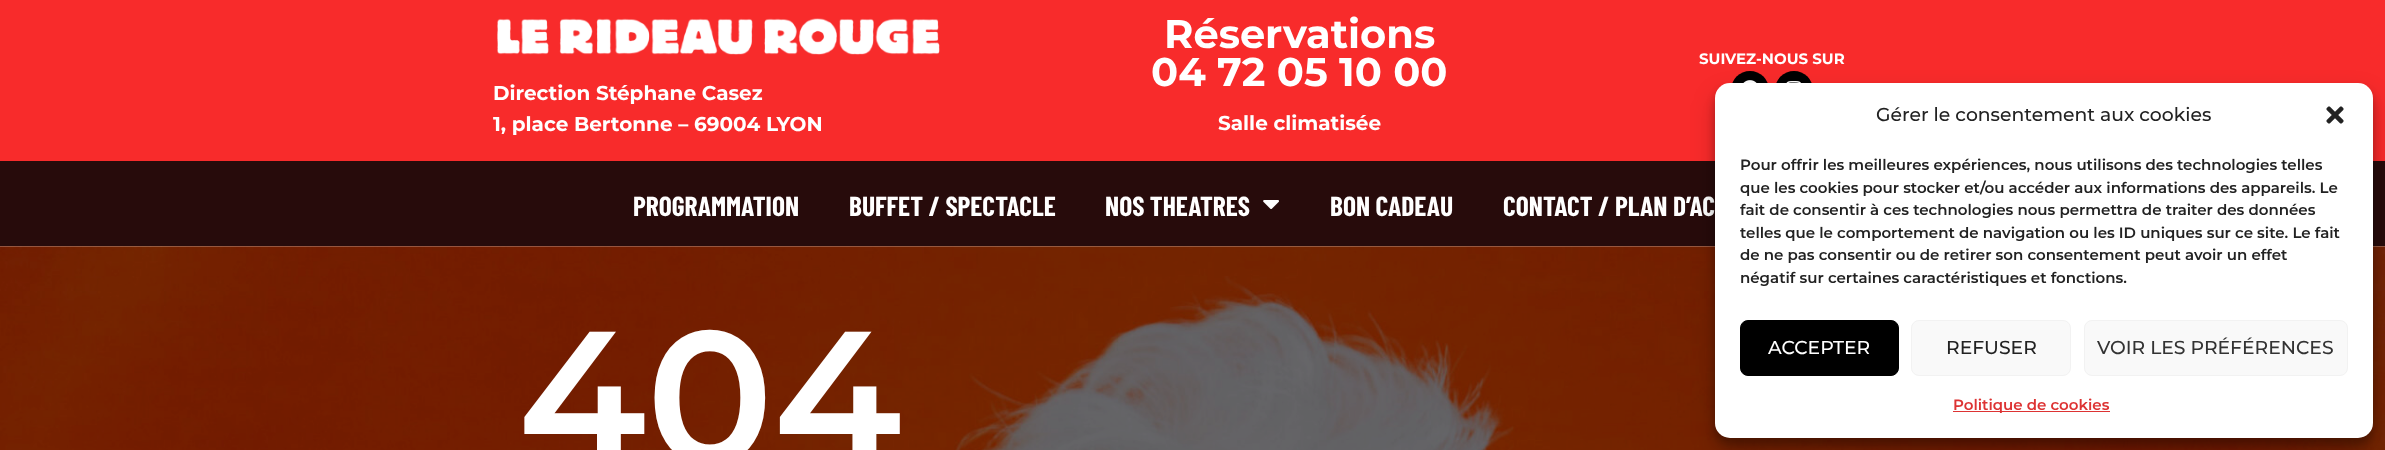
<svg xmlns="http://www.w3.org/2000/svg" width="2385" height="450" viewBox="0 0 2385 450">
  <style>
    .t1 { font: bold 40px Montserrat; fill: #fff; }
    .t2 { font: bold 20px Montserrat; fill: #fff; }
    .t3 { font: bold 15px Montserrat; fill: #fff; }
    .t4 { font: bold 27.5px Barlow Condensed; fill: #fff; }
    .t5 { font: 500 18.75px Montserrat; fill: #222; }
    .t6 { font: 600 15px Montserrat; fill: #222; }
    .t7 { font: 500 18.75px Montserrat; fill: #fff; }
    .t8 { font: 500 18.75px Montserrat; fill: #333; }
    .t9 { font: 600 15px Montserrat; fill: #d33; }
    .t10 { font: 600 189px Montserrat; fill: #fff; }
  </style>
  <rect width="100%" height="100%" fill="#fff"/>
  <rect x="0" y="0" width="2385" height="161" fill="#f82b2b"/>
  <text x="1164" y="48" class="t1">Réservations</text>
  <text x="1151" y="86" class="t1">04 72 05 10 00</text>
  <text x="1218" y="130" class="t2">Salle climatisée</text>
  <text x="1699" y="64" class="t3">SUIVEZ-NOUS SUR</text>
  <circle cx="1750" cy="90" r="19" fill="#000"/>
  <image x="1743" y="80" width="14" height="3" href="images/1.png"/>
  <circle cx="1794" cy="90" r="19" fill="#000"/>
  <image x="1786" y="81" width="15" height="2" href="images/2.png"/>
  <image x="497" y="18" width="443" height="37" href="images/3.png"/>
  <text x="493" y="100" class="t2">Direction Stéphane Casez</text>
  <text x="493" y="131" class="t2">1, place Bertonne – 69004 LYON</text>
  <rect x="0" y="161" width="2385" height="85" fill="#270b0b"/>
  <text x="633" y="216" class="t4">PROGRAMMATION</text>
  <text x="849" y="216" class="t4">BUFFET / SPECTACLE</text>
  <text x="1105" y="216" class="t4">NOS THEATRES</text>
  <image x="1263" y="200" width="16" height="9" href="images/4.png"/>
  <text x="1330" y="216" class="t4">BON CADEAU</text>
  <text x="1503" y="216" class="t4">CONTACT / PLAN D’AC</text>
  <image x="0" y="246" width="2385" height="204" href="images/6.png"/>
  <rect x="1715" y="90" width="658" height="355" rx="15" fill="#0000003b" filter="blur(4px)"/>
  <rect x="1715" y="95" width="658" height="355" rx="15" fill="#00000030" filter="blur(12.5px)"/>
  <rect x="1715" y="83" width="658" height="355" rx="15" fill="#fff"/>
  <text x="1876" y="121" class="t5">Gérer le consentement aux cookies</text>
  <image x="2326" y="106" width="18" height="18" href="images/5.png"/>
  <text x="1740" y="170" class="t6">Pour offrir les meilleures expériences, nous utilisons des technologies telles</text>
  <text x="1740" y="193" class="t6">que les cookies pour stocker et/ou accéder aux informations des appareils. Le</text>
  <text x="1740" y="215" class="t6">fait de consentir à ces technologies nous permettra de traiter des données</text>
  <text x="1740" y="238" class="t6">telles que le comportement de navigation ou les ID uniques sur ce site. Le fait</text>
  <text x="1740" y="260" class="t6">de ne pas consentir ou de retirer son consentement peut avoir un effet</text>
  <text x="1740" y="283" class="t6">négatif sur certaines caractéristiques et fonctions.</text>
  <rect x="1740.5" y="320.5" width="158" height="55" rx="7.5" fill="#000" stroke="#000"/>
  <text x="1768" y="354" class="t7">ACCEPTER</text>
  <rect x="1911.5" y="320.5" width="159" height="55" rx="7.5" fill="#f9f9f9" stroke="#f2f2f2"/>
  <text x="1946" y="354" class="t5">REFUSER</text>
  <rect x="2084.5" y="320.5" width="263" height="55" rx="7.5" fill="#f9f9f9" stroke="#f2f2f2"/>
  <text x="2097" y="354" class="t8">VOIR LES PRÉFÉRENCES</text>
  <rect x="1953" y="411" width="157" height="1" fill="#d33"/>
  <text x="1953" y="410" class="t9">Politique de cookies</text>
  <text x="518" y="464" class="t10">404</text>
</svg>
